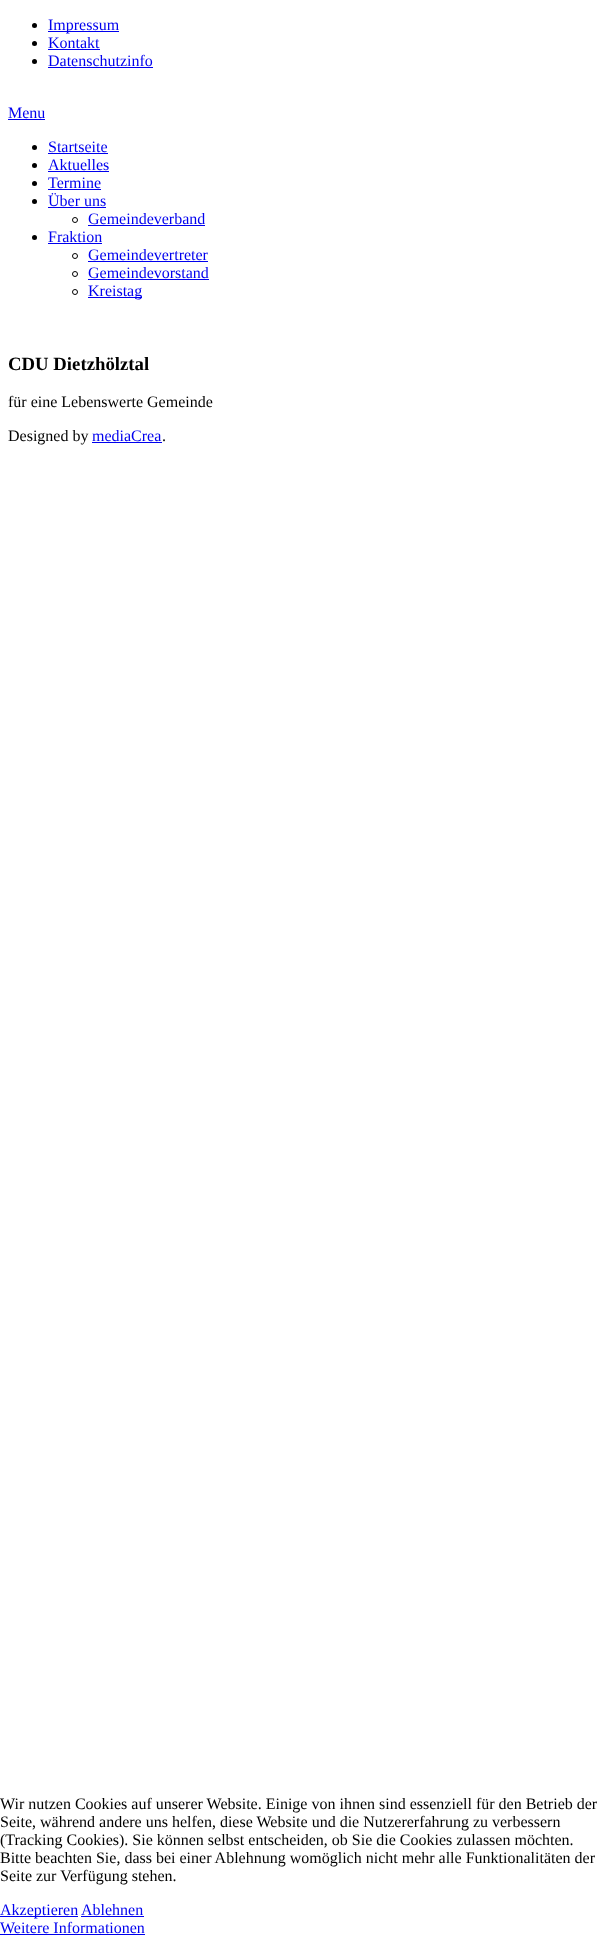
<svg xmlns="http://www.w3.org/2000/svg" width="608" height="1937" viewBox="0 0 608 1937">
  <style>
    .t1 { font: 16px Liberation Serif; fill: #00e; }
    .t2 { font: bold 18.75px Liberation Serif; fill: #000; }
    .t3 { font: 16px Liberation Serif; fill: #000; }
  </style>
  <rect width="100%" height="100%" fill="#fff"/>
  <circle cx="34.5" cy="25.5" r="2.5" fill="#000"/>
  <rect x="48" y="31" width="71" height="1" fill="#00e"/>
  <text x="48" y="30" class="t1">Impressum</text>
  <circle cx="34.5" cy="43.5" r="2.5" fill="#000"/>
  <text x="48" y="48" class="t1">Kontakt</text>
  <rect x="48" y="49" width="52" height="1" fill="#00e"/>
  <circle cx="34.5" cy="61.5" r="2.5" fill="#000"/>
  <text x="48" y="66" class="t1">Datenschutzinfo</text>
  <rect x="48" y="67" width="105" height="1" fill="#00e"/>
  <text x="8" y="118" class="t1">Menu</text>
  <rect x="8" y="119" width="37" height="1" fill="#00e"/>
  <circle cx="34.5" cy="147.5" r="2.5" fill="#000"/>
  <text x="48" y="152" class="t1">Startseite</text>
  <rect x="48" y="153" width="60" height="1" fill="#00e"/>
  <circle cx="34.5" cy="165.5" r="2.5" fill="#000"/>
  <text x="48" y="170" class="t1">Aktuelles</text>
  <rect x="48" y="171" width="61" height="1" fill="#00e"/>
  <circle cx="34.5" cy="183.5" r="2.5" fill="#000"/>
  <text x="48" y="188" class="t1">Termine</text>
  <rect x="48" y="189" width="53" height="1" fill="#00e"/>
  <circle cx="34.5" cy="201.5" r="2.5" fill="#000"/>
  <text x="48" y="206" class="t1">Über uns</text>
  <rect x="48" y="207" width="58" height="1" fill="#00e"/>
  <circle cx="75" cy="220" r="2.5" fill="none" stroke="#000"/>
  <text x="88" y="224" class="t1">Gemeindeverband</text>
  <rect x="88" y="225" width="117" height="1" fill="#00e"/>
  <circle cx="34.5" cy="237.5" r="2.5" fill="#000"/>
  <text x="48" y="242" class="t1">Fraktion</text>
  <rect x="48" y="243" width="54" height="1" fill="#00e"/>
  <circle cx="75" cy="256" r="2.5" fill="none" stroke="#000"/>
  <text x="88" y="260" class="t1">Gemeindevertreter</text>
  <rect x="88" y="261" width="120" height="1" fill="#00e"/>
  <circle cx="75" cy="274" r="2.5" fill="none" stroke="#000"/>
  <text x="88" y="278" class="t1">Gemeindevorstand</text>
  <rect x="88" y="279" width="121" height="1" fill="#00e"/>
  <circle cx="75" cy="292" r="2.5" fill="none" stroke="#000"/>
  <rect x="88" y="297" width="54" height="1" fill="#00e"/>
  <text x="88" y="296" class="t1">Kreistag</text>
  <text x="8" y="370" class="t2">CDU Dietzhölztal</text>
  <text x="8" y="407" class="t3">für eine Lebenswerte Gemeinde</text>
  <text x="8" y="441" class="t3">Designed by</text>
  <text x="92" y="441" class="t1">mediaCrea</text>
  <rect x="92" y="442" width="70" height="1" fill="#00e"/>
  <text x="162" y="441" class="t3">.</text>
  <text x="0" y="1809" class="t3">Wir nutzen Cookies auf unserer Website. Einige von ihnen sind essenziell für den Betrieb der</text>
  <text x="0" y="1827" class="t3">Seite, während andere uns helfen, diese Website und die Nutzererfahrung zu verbessern</text>
  <text x="0" y="1845" class="t3">(Tracking Cookies). Sie können selbst entscheiden, ob Sie die Cookies zulassen möchten.</text>
  <text x="0" y="1863" class="t3">Bitte beachten Sie, dass bei einer Ablehnung womöglich nicht mehr alle Funktionalitäten der</text>
  <text x="0" y="1881" class="t3">Seite zur Verfügung stehen.</text>
  <rect x="0" y="1916" width="78" height="1" fill="#00e"/>
  <text x="0" y="1915" class="t1">Akzeptieren</text>
  <text x="81" y="1915" class="t1">Ablehnen</text>
  <rect x="81" y="1916" width="63" height="1" fill="#00e"/>
  <text x="0" y="1933" class="t1">Weitere Informationen</text>
  <rect x="0" y="1934" width="145" height="1" fill="#00e"/>
</svg>
